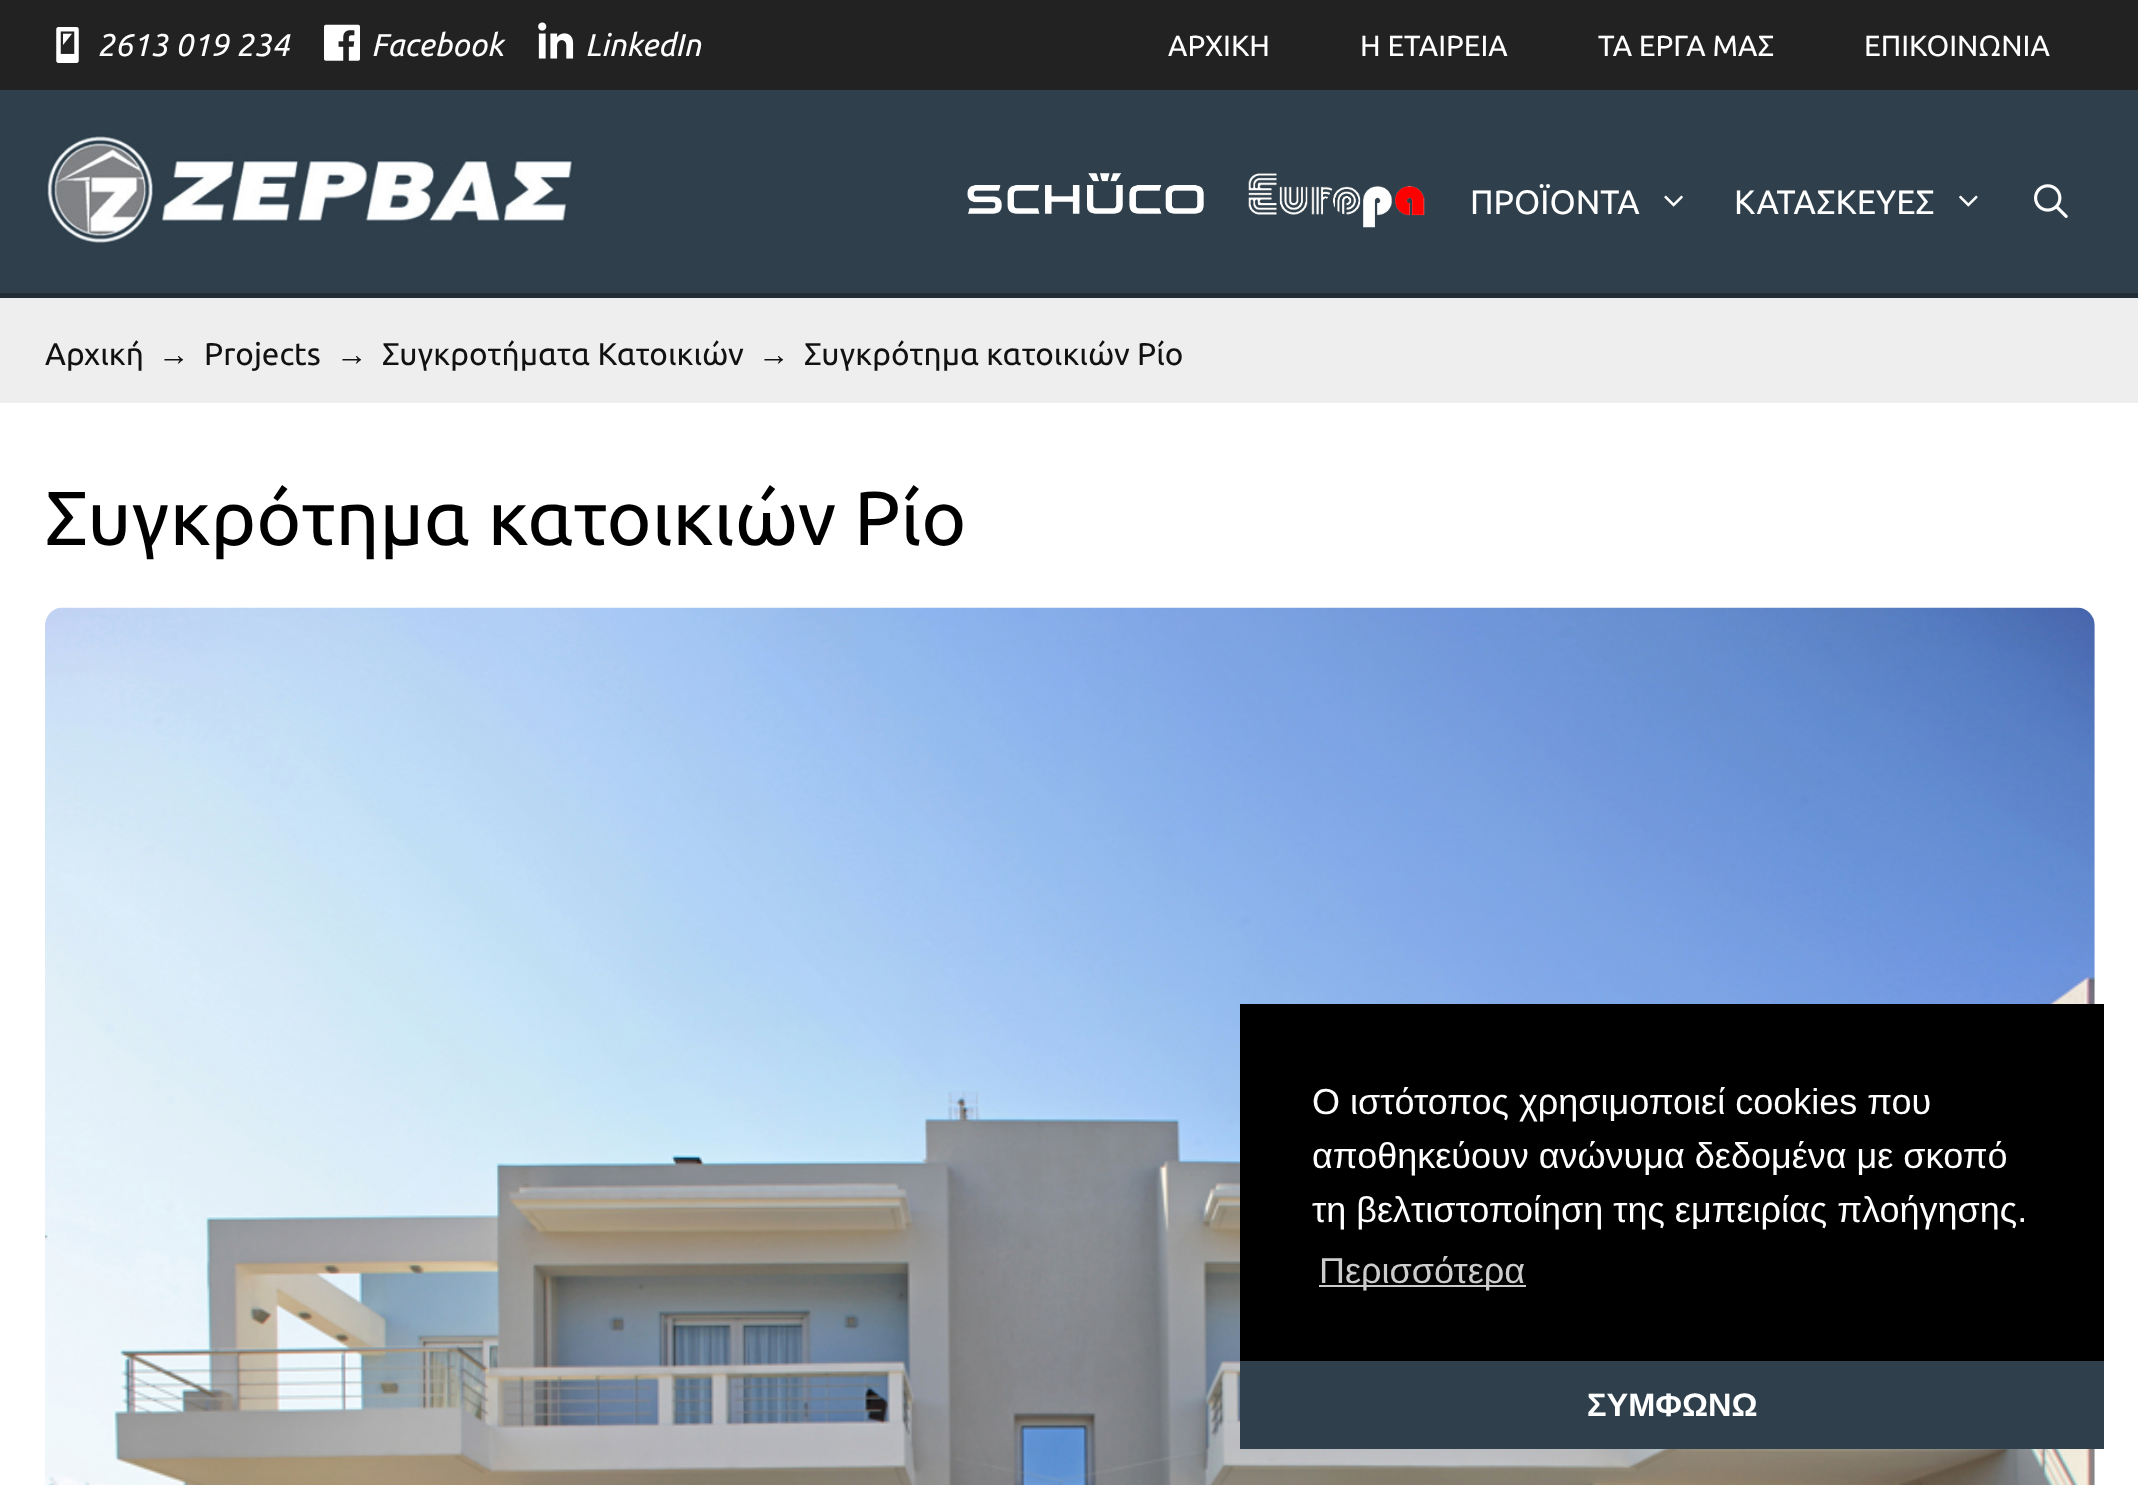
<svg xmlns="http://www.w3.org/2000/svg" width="2138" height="1485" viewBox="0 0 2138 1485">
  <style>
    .t1 { font: italic 31.5px Ubuntu; fill: #fff; }
    .t2 { font: 29.25px Ubuntu; fill: #fff; }
    .t3 { font: 33.75px Ubuntu; fill: #fff; }
    .t4 { font: 31.5px Ubuntu; fill: #111; }
    .t5 { font: 31.5px Liberation Sans; fill: #111; }
    .t6 { font: 76.5px Ubuntu; fill: #000; }
    .t7 { font: 36px Liberation Sans; fill: #fff; }
    .t8 { font: 36px Liberation Sans; fill: #ccc; }
    .t9 { font: bold 32.5px Liberation Sans; fill: #fff; }
  </style>
  <rect width="100%" height="100%" fill="#fff"/>
  <rect x="0" y="0" width="2138" height="90" fill="#222"/>
  <image x="56" y="27" width="23" height="36" href="images/1.png"/>
  <text x="97" y="56" class="t1">2613 019 234</text>
  <image x="324" y="24" width="36" height="37" href="images/2.png"/>
  <text x="371" y="56" class="t1">Facebook</text>
  <image x="538" y="22" width="36" height="37" href="images/3.png"/>
  <text x="585" y="56" class="t1">LinkedIn</text>
  <text x="1168" y="56" class="t2">ΑΡΧΙΚΗ</text>
  <text x="1360" y="56" class="t2">H ΕΤΑΙΡΕΙΑ</text>
  <text x="1598" y="56" class="t2">TA ΕΡΓΑ ΜΑΣ</text>
  <text x="1864" y="56" class="t2">ΕΠΙΚΟΙΝΩΝΙΑ</text>
  <rect x="0" y="90" width="2138" height="203" fill="#2f404c"/>
  <rect x="0" y="293" width="2138" height="5" fill="#222e37"/>
  <image x="45" y="135" width="529" height="109" href="images/4.png"/>
  <image x="967" y="173" width="237" height="41" href="images/5.png"/>
  <image x="1248" y="173" width="177" height="55" href="images/6.png"/>
  <text x="1470" y="214" class="t3">ΠΡΟΪΟΝΤΑ</text>
  <image x="1664" y="195" width="19" height="12" href="images/7.png"/>
  <text x="1734" y="214" class="t3">ΚΑΤΑΣΚΕΥΕΣ</text>
  <image x="1959" y="195" width="19" height="12" href="images/8.png"/>
  <image x="2034" y="184" width="34" height="34" href="images/9.png"/>
  <rect x="0" y="298" width="2138" height="105" fill="#eee"/>
  <text x="45" y="365" class="t4">Αρχική</text>
  <text x="158" y="365" class="t5">→</text>
  <text x="204" y="365" class="t4">Projects</text>
  <text x="336" y="365" class="t5">→</text>
  <text x="382" y="365" class="t4">Συγκροτήματα Κατοικιών</text>
  <text x="758" y="365" class="t5">→</text>
  <text x="804" y="365" class="t4">Συγκρότημα κατοικιών Ρίο</text>
  <text x="45" y="545" class="t6">Συγκρότημα κατοικιών Ρίο</text>
  <image x="45" y="607" width="2050" height="878" href="images/10.png"/>
  <rect x="1240" y="1004" width="864" height="357" fill="#000"/>
  <text x="1312" y="1114" class="t7">Ο ιστότοπος χρησιμοποιεί cookies που</text>
  <text x="1312" y="1168" class="t7">αποθηκεύουν ανώνυμα δεδομένα με σκοπό</text>
  <text x="1312" y="1222" class="t7">τη βελτιστοποίηση της εμπειρίας πλοήγησης.</text>
  <rect x="1319" y="1285" width="207" height="2" fill="#ccc"/>
  <text x="1319" y="1283" class="t8">Περισσότερα</text>
  <rect x="1240" y="1361" width="864" height="88" fill="#2f404c"/>
  <text x="1587" y="1416" class="t9">ΣΥΜΦΩΝΩ</text>
</svg>
